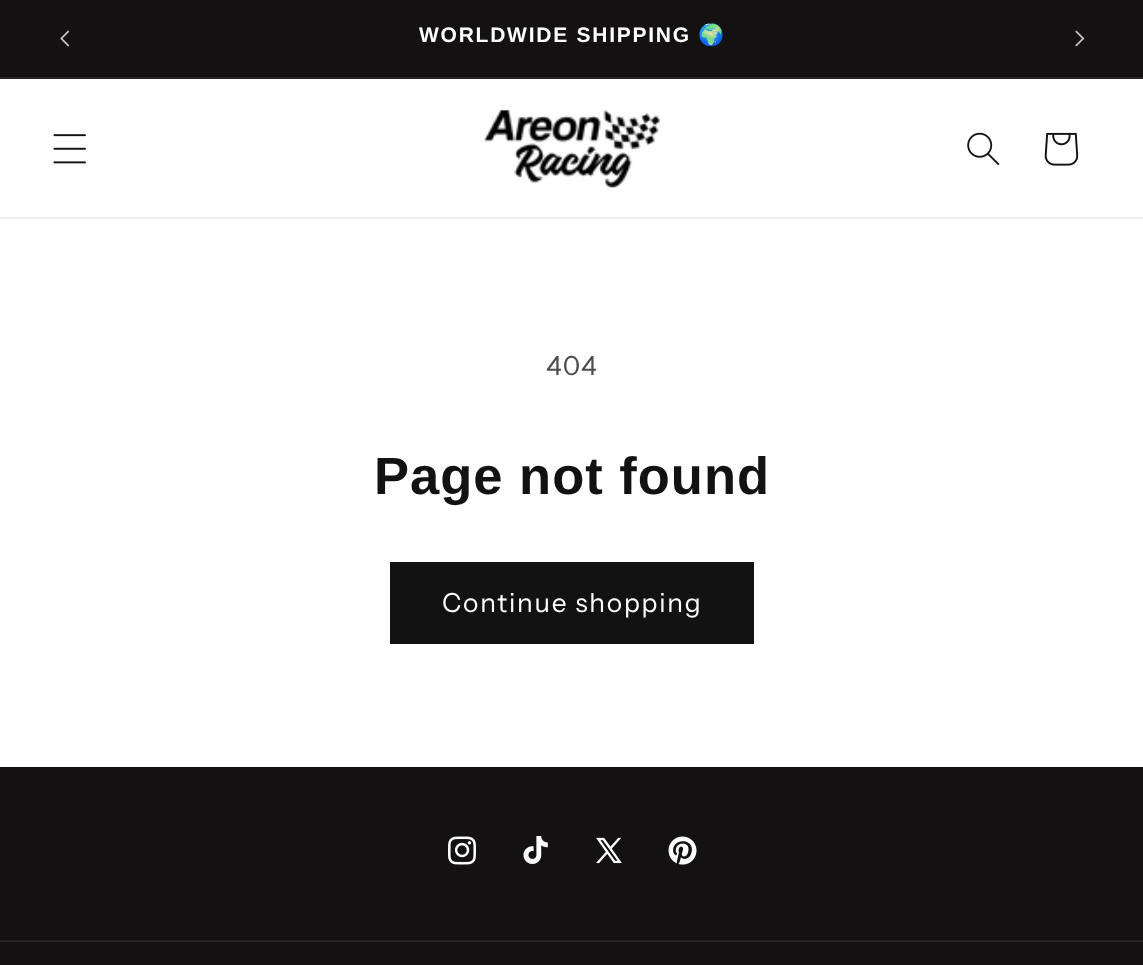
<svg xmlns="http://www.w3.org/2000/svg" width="1143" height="965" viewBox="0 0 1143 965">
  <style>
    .t1 { font: bold 21px Liberation Sans; letter-spacing: 1.75px; fill: #fff; }
    .t2 { font: bold 21px Noto Color Emoji; letter-spacing: 1.75px; fill: #fff; }
    .t3 { font: 26.25px Instrument Sans; letter-spacing: 1px; fill: #4d4d4d; }
    .t4 { font: bold 52.5px Liberation Sans; letter-spacing: 1px; fill: #121212; }
    .t5 { font: 26.25px Instrument Sans; letter-spacing: 1.75px; fill: #fff; }
  </style>
  <rect width="100%" height="100%" fill="#fff"/>
  <rect x="0" y="0" width="1143" height="77" fill="#131111"/>
  <rect x="0" y="77" width="1143" height="2" fill="#262424"/>
  <image x="60" y="30" width="10" height="17" href="images/1.png"/>
  <text x="419" y="42" class="t1">WORLDWIDE SHIPPING</text>
  <text x="698" y="42" class="t2">🌍</text>
  <image x="1075" y="30" width="10" height="17" href="images/2.png"/>
  <rect x="0" y="217" width="1143" height="2" fill="#ececec"/>
  <image x="53" y="134" width="33" height="30" href="images/3.png"/>
  <image x="484" y="109" width="176" height="79" href="images/4.png"/>
  <image x="967" y="132" width="33" height="34" href="images/5.png"/>
  <image x="1044" y="132" width="35" height="34" href="images/6.png"/>
  <text x="546" y="375" class="t3">404</text>
  <text x="374" y="494" class="t4">Page not found</text>
  <rect x="390" y="562" width="364" height="82" fill="#121212"/>
  <text x="442" y="612" class="t5">Continue shopping</text>
  <rect x="0" y="767" width="1143" height="198" fill="#131111"/>
  <image x="448" y="836" width="28" height="29" href="images/7.png"/>
  <image x="523" y="836" width="25" height="28" href="images/8.png"/>
  <image x="596" y="837" width="26" height="27" href="images/9.png"/>
  <image x="668" y="836" width="29" height="29" href="images/10.png"/>
  <rect x="0" y="940" width="1143" height="2" fill="#262424"/>
</svg>
